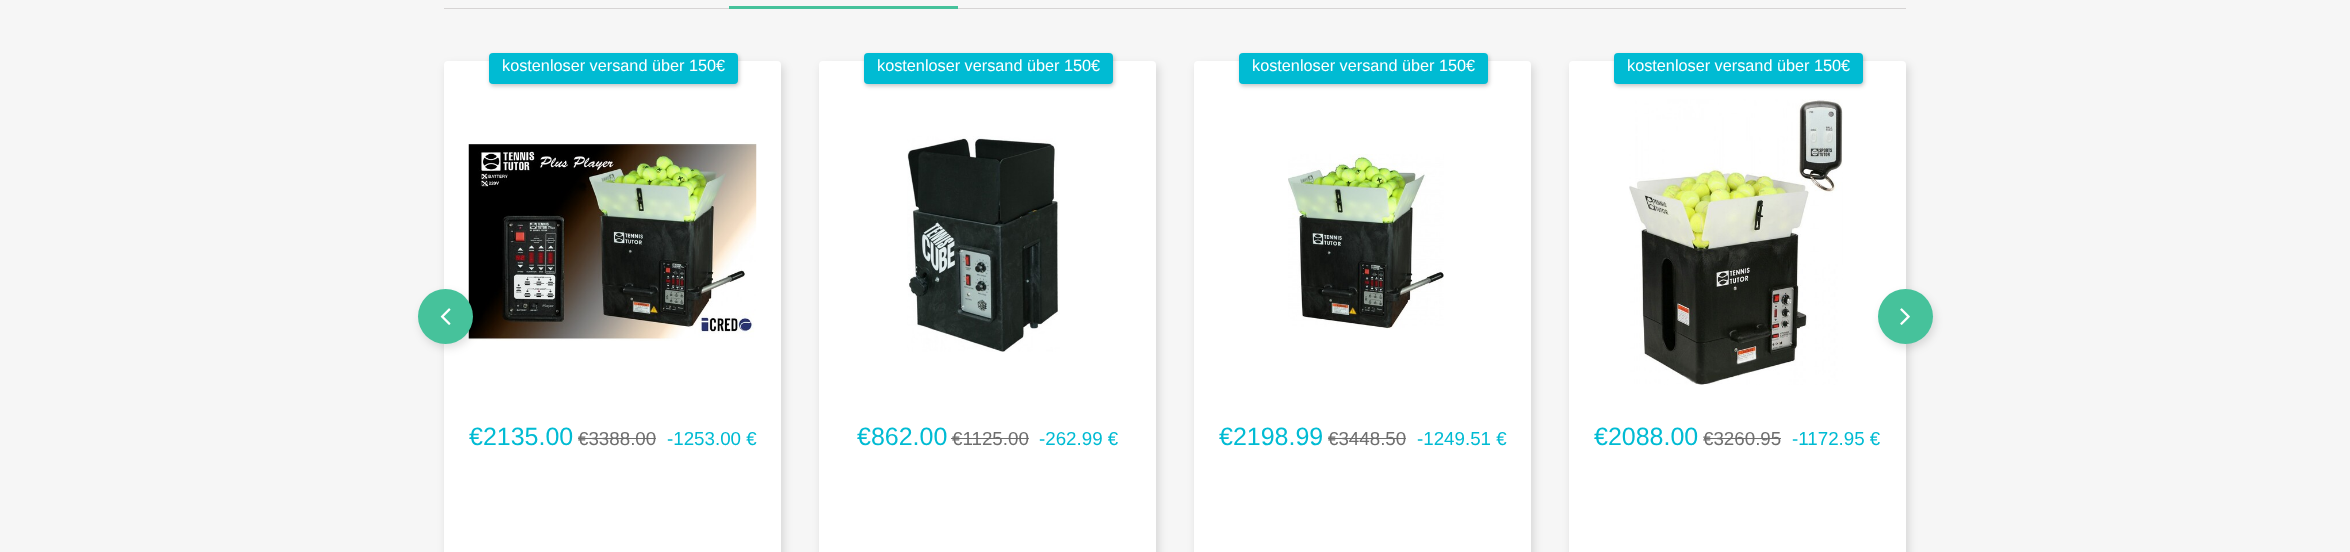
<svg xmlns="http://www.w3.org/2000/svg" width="2350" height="552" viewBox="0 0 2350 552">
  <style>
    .t1 { font: 16.25px Liberation Sans; fill: #fff; }
    .t2 { font: 25px Liberation Sans; fill: #00bbd3; }
    .t3 { font: 18.75px Liberation Sans; fill: #6f6f6f; }
    .t4 { font: 18.75px Liberation Sans; fill: #00bbd3; }
  </style>
  <rect width="100%" height="100%" fill="#f6f6f6"/>
  <rect x="444" y="8" width="1462" height="1" fill="#d6d4d4"/>
  <rect x="729" y="6" width="229" height="3" fill="#46c29b"/>
  <rect x="446" y="65" width="338" height="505" rx="4" fill="#0000001f" filter="blur(4.5px)"/>
  <rect x="444" y="61" width="337" height="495" rx="4" fill="#fff"/>
  <rect x="490" y="55" width="249" height="31" rx="4" fill="#0000003b" filter="blur(2px)"/>
  <rect x="489" y="53" width="249" height="31" rx="4" fill="#00bbd3"/>
  <text x="502" y="71" class="t1">kostenloser versand über 150€</text>
  <image x="468" y="142" width="289" height="199" href="images/1.png"/>
  <text x="469" y="445" class="t2">€2135.00</text>
  <text x="578" y="445" class="t3">€3388.00</text>
  <rect x="578" y="438" width="78" height="1" fill="#6f6f6f"/>
  <text x="667" y="445" class="t4">-1253.00 €</text>
  <rect x="821" y="65" width="338" height="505" rx="4" fill="#0000001f" filter="blur(4.5px)"/>
  <rect x="819" y="61" width="337" height="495" rx="4" fill="#fff"/>
  <rect x="865" y="55" width="249" height="31" rx="4" fill="#0000003b" filter="blur(2px)"/>
  <rect x="864" y="53" width="249" height="31" rx="4" fill="#00bbd3"/>
  <text x="877" y="71" class="t1">kostenloser versand über 150€</text>
  <image x="907" y="136" width="153" height="216" href="images/2.png"/>
  <text x="857" y="445" class="t2">€862.00</text>
  <text x="952" y="445" class="t3">€1125.00</text>
  <rect x="951" y="438" width="78" height="1" fill="#6f6f6f"/>
  <text x="1039" y="445" class="t4">-262.99 €</text>
  <rect x="1196" y="65" width="338" height="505" rx="4" fill="#0000001f" filter="blur(4.5px)"/>
  <rect x="1194" y="61" width="337" height="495" rx="4" fill="#fff"/>
  <rect x="1240" y="55" width="249" height="31" rx="4" fill="#0000003b" filter="blur(2px)"/>
  <rect x="1239" y="53" width="249" height="31" rx="4" fill="#00bbd3"/>
  <text x="1252" y="71" class="t1">kostenloser versand über 150€</text>
  <image x="1288" y="154" width="156" height="175" href="images/3.png"/>
  <text x="1219" y="445" class="t2">€2198.99</text>
  <text x="1328" y="445" class="t3">€3448.50</text>
  <rect x="1328" y="438" width="78" height="1" fill="#6f6f6f"/>
  <text x="1417" y="445" class="t4">-1249.51 €</text>
  <rect x="1571" y="65" width="338" height="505" rx="4" fill="#0000001f" filter="blur(4.5px)"/>
  <rect x="1569" y="61" width="337" height="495" rx="4" fill="#fff"/>
  <rect x="1615" y="55" width="249" height="31" rx="4" fill="#0000003b" filter="blur(2px)"/>
  <rect x="1614" y="53" width="249" height="31" rx="4" fill="#00bbd3"/>
  <text x="1627" y="71" class="t1">kostenloser versand über 150€</text>
  <image x="1629" y="99" width="214" height="286" href="images/4.png"/>
  <text x="1594" y="445" class="t2">€2088.00</text>
  <text x="1703" y="445" class="t3">€3260.95</text>
  <rect x="1704" y="438" width="77" height="1" fill="#6f6f6f"/>
  <text x="1792" y="445" class="t4">-1172.95 €</text>
  <rect x="420" y="293" width="55" height="55" rx="27.5" fill="#0000001f" filter="blur(4.5px)"/>
  <circle cx="445.5" cy="316.5" r="27.5" fill="#46c29b"/>
  <image x="440" y="308" width="11" height="17" href="images/5.png"/>
  <rect x="1880" y="293" width="55" height="55" rx="27.5" fill="#0000001f" filter="blur(4.5px)"/>
  <circle cx="1905.5" cy="316.5" r="27.5" fill="#46c29b"/>
  <image x="1900" y="308" width="10" height="17" href="images/6.png"/>
</svg>
